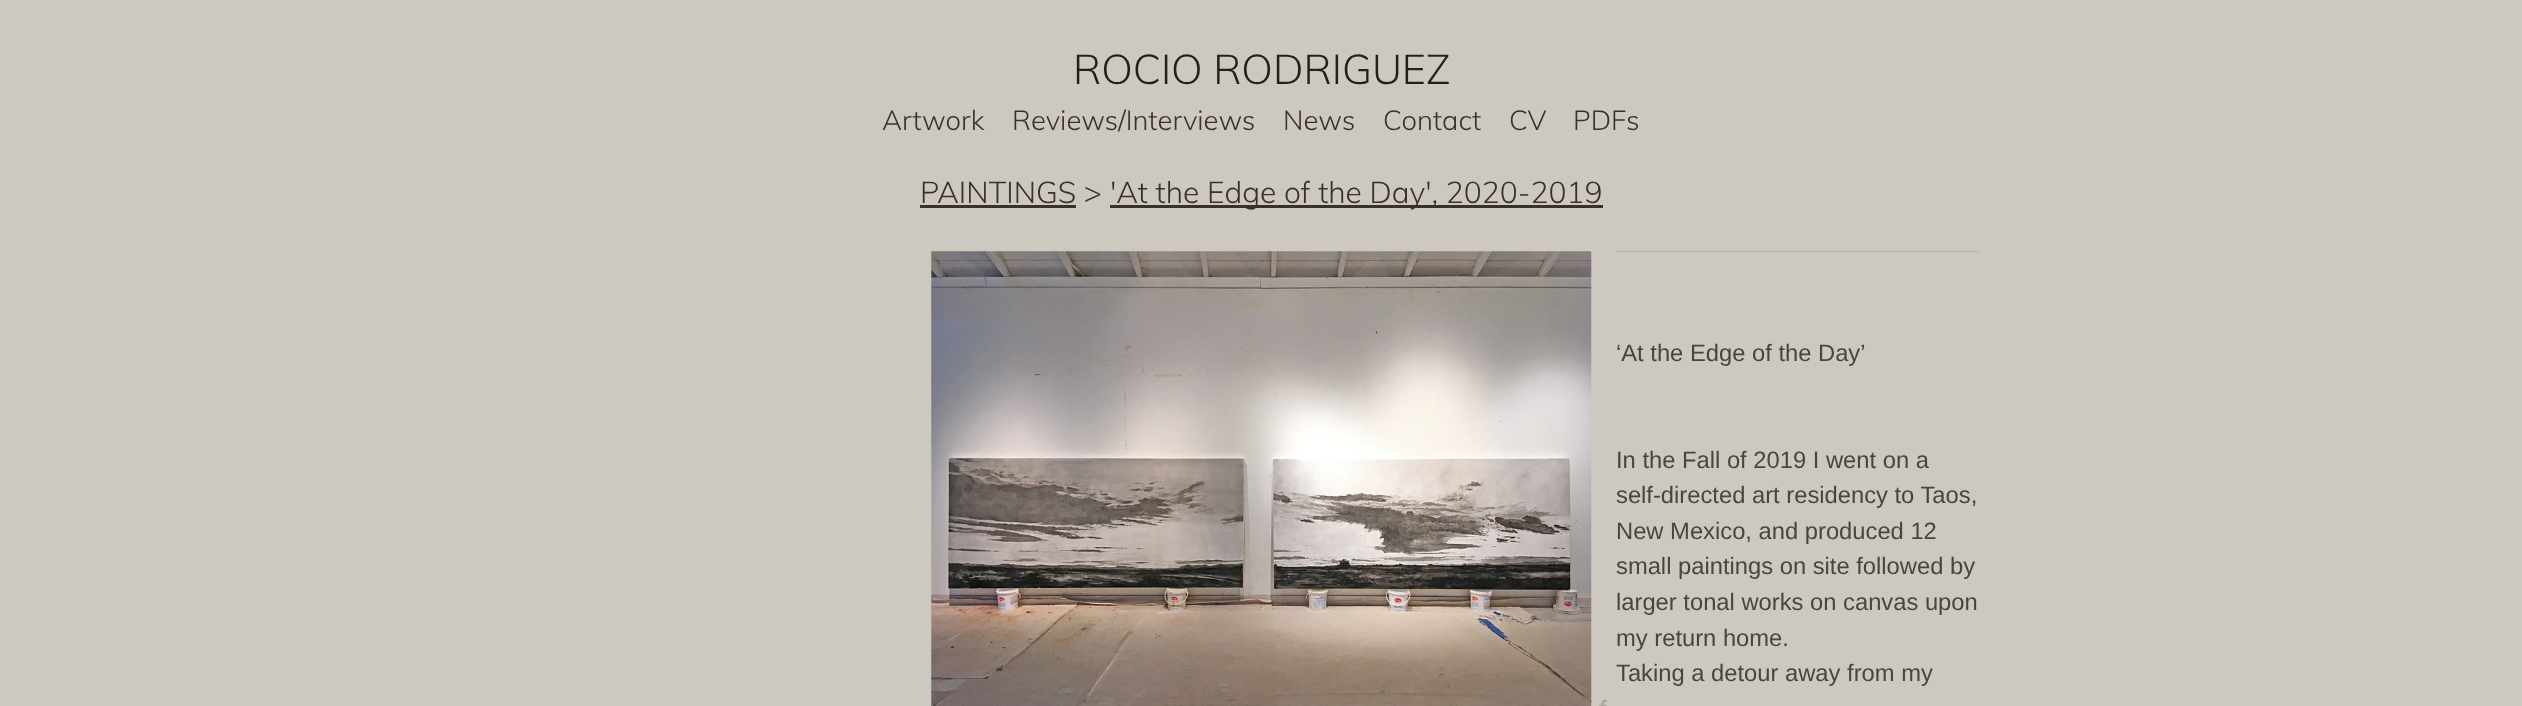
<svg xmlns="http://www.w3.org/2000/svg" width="2522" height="706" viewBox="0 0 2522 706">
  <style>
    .t1 { font: 300 41.25px Muli; fill: #261d1d; }
    .t2 { font: 300 27.5px Muli; fill: #3b3030; }
    .t3 { font: 300 30px Muli; fill: #3b3030; }
    .t4 { font: 23.75px Liberation Sans; fill: #4a4540; }
  </style>
  <rect width="100%" height="100%" fill="#cdc9c0"/>
  <text x="1073" y="84" class="t1">ROCIO RODRIGUEZ</text>
  <text x="882" y="130" class="t2">Artwork</text>
  <text x="1012" y="130" class="t2">Reviews/Interviews</text>
  <text x="1283" y="130" class="t2">News</text>
  <text x="1383" y="130" class="t2">Contact</text>
  <text x="1509" y="130" class="t2">CV</text>
  <text x="1573" y="130" class="t2">PDFs</text>
  <text x="920" y="203" class="t3">PAINTINGS &gt;</text>
  <rect x="920" y="205" width="156" height="3" fill="#3b3030"/>
  <rect x="1110" y="205" width="493" height="3" fill="#3b3030"/>
  <text x="1110" y="203" class="t3">'At the Edge of the Day', 2020-2019</text>
  <image x="931" y="251" width="661" height="455" href="images/1.png"/>
  <image x="1599" y="699" width="8" height="7" href="images/2.png"/>
  <rect x="1616" y="251" width="363" height="1" fill="#b3afa6"/>
  <text x="1616" y="361" class="t4">‘At the Edge of the Day’</text>
  <text x="1616" y="468" class="t4">In the Fall of 2019 I went on a</text>
  <text x="1616" y="503" class="t4">self-directed art residency to Taos,</text>
  <text x="1616" y="539" class="t4">New Mexico, and produced 12</text>
  <text x="1616" y="574" class="t4">small paintings on site followed by</text>
  <text x="1616" y="610" class="t4">larger tonal works on canvas upon</text>
  <text x="1616" y="646" class="t4">my return home.</text>
  <text x="1616" y="681" class="t4">Taking a detour away from my</text>
</svg>
